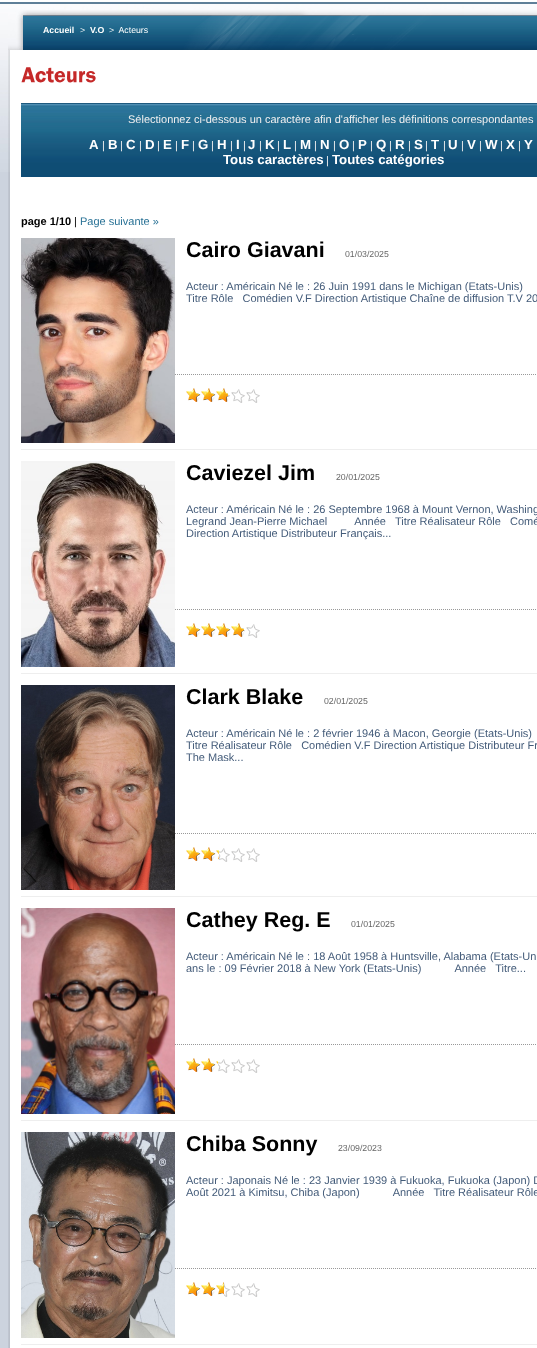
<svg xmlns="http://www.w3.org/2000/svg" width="537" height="1348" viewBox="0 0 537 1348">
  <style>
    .t1 { font: bold 8.75px Liberation Sans; fill: #fff; }
    .t2 { font: 8.75px Liberation Sans; fill: #fff; }
    .t3 { font: 11px Liberation Sans; fill: #f0f0f0; }
    .t4 { font: bold 13.25px Liberation Sans; fill: #fff; }
    .t5 { font: bold 11px Liberation Sans; fill: #000; }
    .t6 { font: 11px Liberation Sans; fill: #000; }
    .t7 { font: 11px Liberation Sans; fill: #287195; }
    .t8 { font: bold 21.5px Liberation Sans; fill: #000; }
    .t9 { font: 8.75px Liberation Sans; fill: #666; }
    .t10 { font: 11px Liberation Sans; fill: #435b79; }
  </style>
  <rect width="100%" height="100%" fill="#fff"/>
  <image x="0" y="2" width="537" height="2" href="images/1.png"/>
  <rect x="0" y="172" width="10" height="1176" fill="#ccd3de"/>
  <image x="0" y="4" width="537" height="168" href="images/2.png"/>
  <image x="8" y="10" width="529" height="40" href="images/3.png"/>
  <text x="43" y="33" class="t1">Accueil</text>
  <text x="80" y="33" class="t2">&gt;</text>
  <text x="90" y="33" class="t1">V.O</text>
  <text x="109" y="33" class="t2" xml:space="preserve">&gt;  Acteurs</text>
  <image x="8" y="50" width="529" height="1298" href="images/4.png"/>
  <image x="21" y="67" width="75" height="16" href="images/5.png"/>
  <image x="21" y="103" width="516" height="74" href="images/6.png"/>
  <text x="128" y="123" class="t3">Sélectionnez ci-dessous un caractère afin d'afficher les définitions correspondantes</text>
  <text x="89" y="149" class="t4">A</text>
  <text x="102" y="149" class="t3">|</text>
  <text x="108" y="149" class="t4">B</text>
  <text x="120" y="149" class="t3">|</text>
  <text x="126" y="149" class="t4">C</text>
  <text x="139" y="149" class="t3">|</text>
  <text x="145" y="149" class="t4">D</text>
  <text x="157" y="149" class="t3">|</text>
  <text x="163" y="149" class="t4">E</text>
  <text x="175" y="149" class="t3">|</text>
  <text x="181" y="149" class="t4">F</text>
  <text x="192" y="149" class="t3">|</text>
  <text x="198" y="149" class="t4">G</text>
  <text x="211" y="149" class="t3">|</text>
  <text x="217" y="149" class="t4">H</text>
  <text x="230" y="149" class="t3">|</text>
  <text x="236" y="149" class="t4">I</text>
  <text x="243" y="149" class="t3">|</text>
  <text x="248" y="149" class="t4">J</text>
  <text x="259" y="149" class="t3">|</text>
  <text x="265" y="149" class="t4">K</text>
  <text x="277" y="149" class="t3">|</text>
  <text x="283" y="149" class="t4">L</text>
  <text x="294" y="149" class="t3">|</text>
  <text x="300" y="149" class="t4">M</text>
  <text x="314" y="149" class="t3">|</text>
  <text x="320" y="149" class="t4">N</text>
  <text x="333" y="149" class="t3">|</text>
  <text x="339" y="149" class="t4">O</text>
  <text x="352" y="149" class="t3">|</text>
  <text x="358" y="149" class="t4">P</text>
  <text x="370" y="149" class="t3">|</text>
  <text x="376" y="149" class="t4">Q</text>
  <text x="389" y="149" class="t3">|</text>
  <text x="395" y="149" class="t4">R</text>
  <text x="408" y="149" class="t3">|</text>
  <text x="414" y="149" class="t4">S</text>
  <text x="425" y="149" class="t3">|</text>
  <text x="431" y="149" class="t4">T</text>
  <text x="443" y="149" class="t3">|</text>
  <text x="448" y="149" class="t4">U</text>
  <text x="461" y="149" class="t3">|</text>
  <text x="467" y="149" class="t4">V</text>
  <text x="479" y="149" class="t3">|</text>
  <text x="485" y="149" class="t4">W</text>
  <text x="500" y="149" class="t3">|</text>
  <text x="506" y="149" class="t4">X</text>
  <text x="518" y="149" class="t3">|</text>
  <text x="524" y="149" class="t4">Y</text>
  <text x="223" y="164" class="t4">Tous caractères</text>
  <text x="326" y="164" class="t3">|</text>
  <text x="332" y="164" class="t4">Toutes catégories</text>
  <text x="21" y="225" class="t5">page 1/10</text>
  <text x="74" y="225" class="t6">|</text>
  <text x="80" y="225" class="t7">Page suivante »</text>
  <path d="M41 374.5H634" fill="none" stroke="#999" stroke-dasharray="1 1"/>
  <image x="21" y="238" width="154" height="205" href="images/7.png"/>
  <text x="186" y="257" class="t8">Cairo Giavani</text>
  <text x="345" y="257" class="t9">01/03/2025</text>
  <text x="186" y="290" class="t10">Acteur : Américain Né le : 26 Juin 1991 dans le Michigan (Etats-Unis)</text>
  <text x="186" y="302" class="t10" xml:space="preserve">Titre Rôle   Comédien V.F Direction Artistique Chaîne de diffusion T.V 20</text>
  <image x="228" y="389" width="32" height="14" href="images/8.png"/>
  <image x="186" y="388" width="42" height="15" href="images/9.png"/>
  <rect x="21" y="449" width="516" height="1" fill="#eee"/>
  <path d="M41 609.5H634" fill="none" stroke="#999" stroke-dasharray="1 1"/>
  <image x="21" y="461" width="154" height="206" href="images/10.png"/>
  <text x="186" y="480" class="t8">Caviezel Jim</text>
  <text x="336" y="480" class="t9">20/01/2025</text>
  <text x="186" y="513" class="t10">Acteur : Américain Né le : 26 Septembre 1968 à Mount Vernon, Washing</text>
  <text x="186" y="525" class="t10" xml:space="preserve">Legrand Jean-Pierre Michael         Année   Titre Réalisateur Rôle   Comé</text>
  <text x="186" y="537" class="t10">Direction Artistique Distributeur Français...</text>
  <image x="244" y="624" width="16" height="14" href="images/11.png"/>
  <image x="186" y="623" width="58" height="15" href="images/12.png"/>
  <rect x="21" y="673" width="516" height="1" fill="#eee"/>
  <path d="M41 833.5H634" fill="none" stroke="#999" stroke-dasharray="1 1"/>
  <image x="21" y="685" width="154" height="205" href="images/13.png"/>
  <text x="186" y="704" class="t8">Clark Blake</text>
  <text x="324" y="704" class="t9">02/01/2025</text>
  <text x="186" y="737" class="t10">Acteur : Américain Né le : 2 février 1946 à Macon, Georgie (Etats-Unis)</text>
  <text x="186" y="749" class="t10" xml:space="preserve">Titre Réalisateur Rôle   Comédien V.F Direction Artistique Distributeur Fr</text>
  <text x="186" y="761" class="t10">The Mask...</text>
  <image x="219" y="848" width="41" height="14" href="images/14.png"/>
  <image x="186" y="847" width="33" height="15" href="images/15.png"/>
  <rect x="21" y="896" width="516" height="1" fill="#eee"/>
  <path d="M41 1044.5H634" fill="none" stroke="#999" stroke-dasharray="1 1"/>
  <image x="21" y="908" width="154" height="206" href="images/16.png"/>
  <text x="186" y="927" class="t8">Cathey Reg. E</text>
  <text x="351" y="927" class="t9">01/01/2025</text>
  <text x="186" y="960" class="t10">Acteur : Américain Né le : 18 Août 1958 à Huntsville, Alabama (Etats-Un</text>
  <text x="186" y="972" class="t10" xml:space="preserve">ans le : 09 Février 2018 à New York (Etats-Unis)           Année   Titre...</text>
  <image x="218" y="1059" width="42" height="14" href="images/17.png"/>
  <image x="186" y="1058" width="32" height="15" href="images/18.png"/>
  <rect x="21" y="1120" width="516" height="1" fill="#eee"/>
  <path d="M41 1268.5H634" fill="none" stroke="#999" stroke-dasharray="1 1"/>
  <image x="21" y="1132" width="154" height="206" href="images/19.png"/>
  <text x="186" y="1151" class="t8">Chiba Sonny</text>
  <text x="338" y="1151" class="t9">23/09/2023</text>
  <text x="186" y="1184" class="t10">Acteur : Japonais Né le : 23 Janvier 1939 à Fukuoka, Fukuoka (Japon) D</text>
  <text x="186" y="1196" class="t10" xml:space="preserve">Août 2021 à Kimitsu, Chiba (Japon)           Année   Titre Réalisateur Rôle</text>
  <image x="224" y="1283" width="36" height="14" href="images/20.png"/>
  <image x="186" y="1282" width="38" height="15" href="images/21.png"/>
  <rect x="21" y="1344" width="516" height="1" fill="#eee"/>
</svg>
